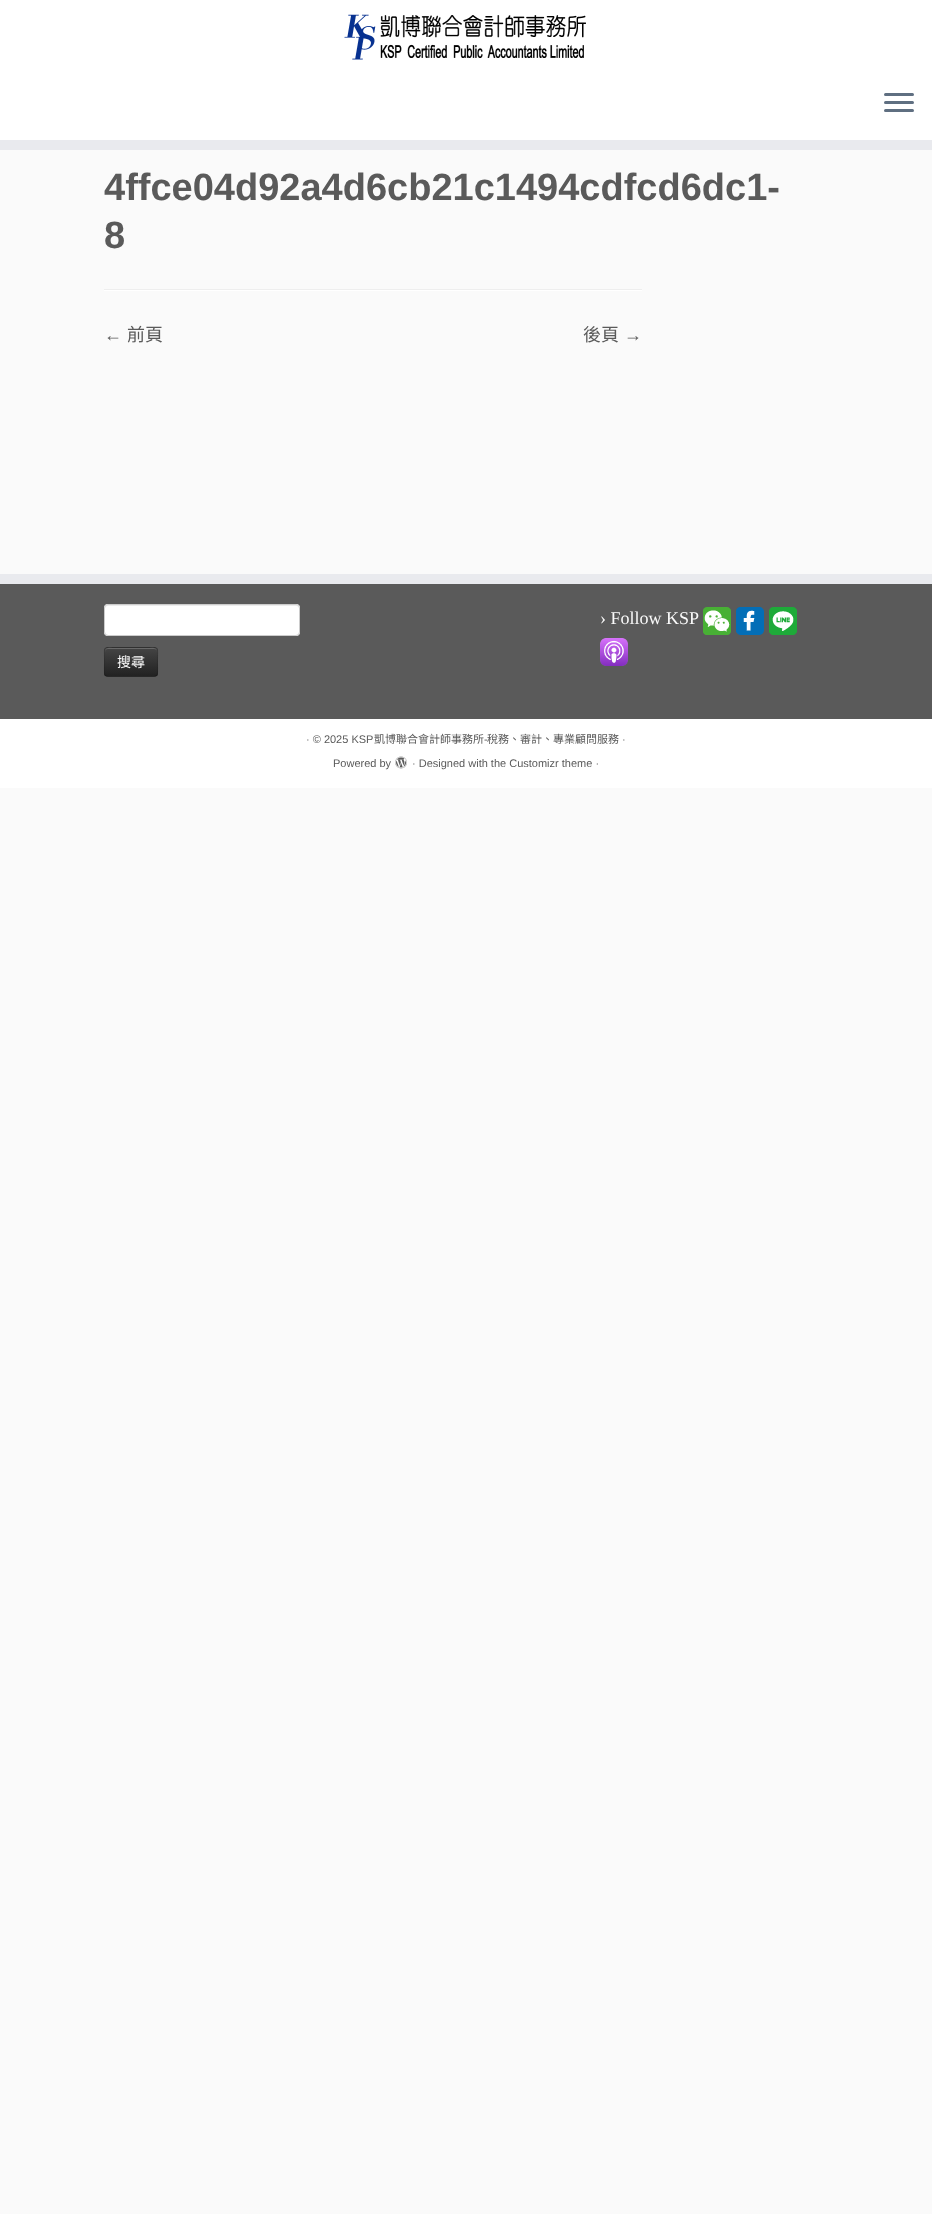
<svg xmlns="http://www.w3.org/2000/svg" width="932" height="2214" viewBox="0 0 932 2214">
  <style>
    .t1 { font: bold 38px Liberation Sans; fill: #5a5a5a; }
    .t2 { font: 18px Liberation Sans; fill: #5a5a5a; }
    .t3 { font: 18px Noto Sans CJK TC; fill: #5a5a5a; }
    .t4 { font: 18px Liberation Serif; fill: #fafafa; }
    .t5 { font: 14px Noto Sans CJK TC; fill: #fafafa; }
    .t6 { font: 11px Liberation Sans; fill: #5a5a5a; }
    .t7 { font: 11px Noto Sans CJK TC; fill: #5a5a5a; }
  </style>
  <defs>
    <clipPath id="clip1"><rect x="104" y="647" width="54" height="30" rx="4"/></clipPath>
    <linearGradient id="g1" gradientUnits="userSpaceOnUse" x1="131" y1="648" x2="131" y2="676"><stop offset="0" stop-color="#444"/><stop offset="1" stop-color="#222"/></linearGradient>
  </defs>
  <rect width="100%" height="100%" fill="#fafafa"/>
  <rect x="0" y="0" width="932" height="140" fill="#fff"/>
  <rect x="0" y="140" width="932" height="10" fill="#e9eaee"/>
  <image x="344" y="14" width="242" height="46" href="images/1.png"/>
  <rect x="884" y="93" width="30" height="3" rx="1.5" fill="#5f6f81"/>
  <rect x="884" y="101" width="30" height="3" rx="1.5" fill="#5f6f81"/>
  <rect x="884" y="109" width="30" height="3" rx="1.5" fill="#5f6f81"/>
  <text x="104" y="200" class="t1">4ffce04d92a4d6cb21c1494cdfcd6dc1-</text>
  <text x="104" y="248" class="t1">8</text>
  <rect x="104" y="289" width="538" height="1" fill="#eee"/>
  <rect x="104" y="290" width="538" height="1" fill="#fff"/>
  <text x="104" y="341" class="t2">←</text>
  <text x="127" y="341" class="t3">前頁</text>
  <text x="583" y="341" class="t3">後頁</text>
  <text x="624" y="341" class="t2">→</text>
  <rect x="0" y="584" width="932" height="135" fill="#5a5a5a"/>
  <rect x="0" y="574" width="932" height="10" fill="#e9eaee"/>
  <text x="600" y="624" class="t4">› Follow KSP</text>
  <image x="703" y="607" width="28" height="28" href="images/2.png"/>
  <image x="736" y="607" width="28" height="28" href="images/3.png"/>
  <image x="769" y="607" width="28" height="28" href="images/4.png"/>
  <image x="600" y="638" width="28" height="28" href="images/5.png"/>
  <rect x="104" y="604" width="196" height="32" rx="4" fill="#fff"/>
  <path d="M108 606H296C298 606 299 607 299 609C299 607 298 605 296 605H108C106 605 105 607 105 609C105 607 106 606 108 606Z" fill="#ececec"/>
  <rect x="104.5" y="604.5" width="195" height="31" rx="3.5" fill="none" stroke="#ccc"/>
  <rect x="104" y="647" width="54" height="30" rx="4" fill="#363636"/>
  <g clip-path="url(#clip1)">
    <rect x="104" y="648" width="54" height="28" fill="url(#g1)"/>
  </g>
  <path d="M108 649H154C156 649 157 650 157 652C157 646 151 648 146 648H116C111 648 105 646 105 652C105 650 106 649 108 649Z" fill="#696969"/>
  <path d="M156.5 675.5C156 676 155 676.5 154 676.5H108C107 676.5 106 676 105.5 675.5" fill="none" stroke="#00000040"/>
  <path d="M105.5 675.5C103.5 673.5 104.5 665 104.5 662C104.5 647.5 101.5 647.5 115.5 647.5H146.5C160.5 647.5 157.5 647.5 157.5 662C157.5 665 158.5 673.5 156.5 675.5" fill="none" stroke="#0000001a"/>
  <text x="117" y="667" class="t5">搜尋</text>
  <rect x="0" y="719" width="932" height="69" fill="#fff"/>
  <text x="306" y="743" class="t6">· © 2025 KSP</text>
  <text x="374" y="743" class="t7">凱博聯合會計師事務所</text>
  <text x="484" y="743" class="t6">-</text>
  <text x="487" y="743" class="t7">稅務、審計、專業顧問服務</text>
  <text x="622" y="743" class="t6">·</text>
  <text x="333" y="767" class="t6">Powered by</text>
  <image x="395" y="756" width="12" height="13" href="images/6.png"/>
  <text x="412" y="767" class="t6">· Designed with the Customizr theme ·</text>
</svg>
